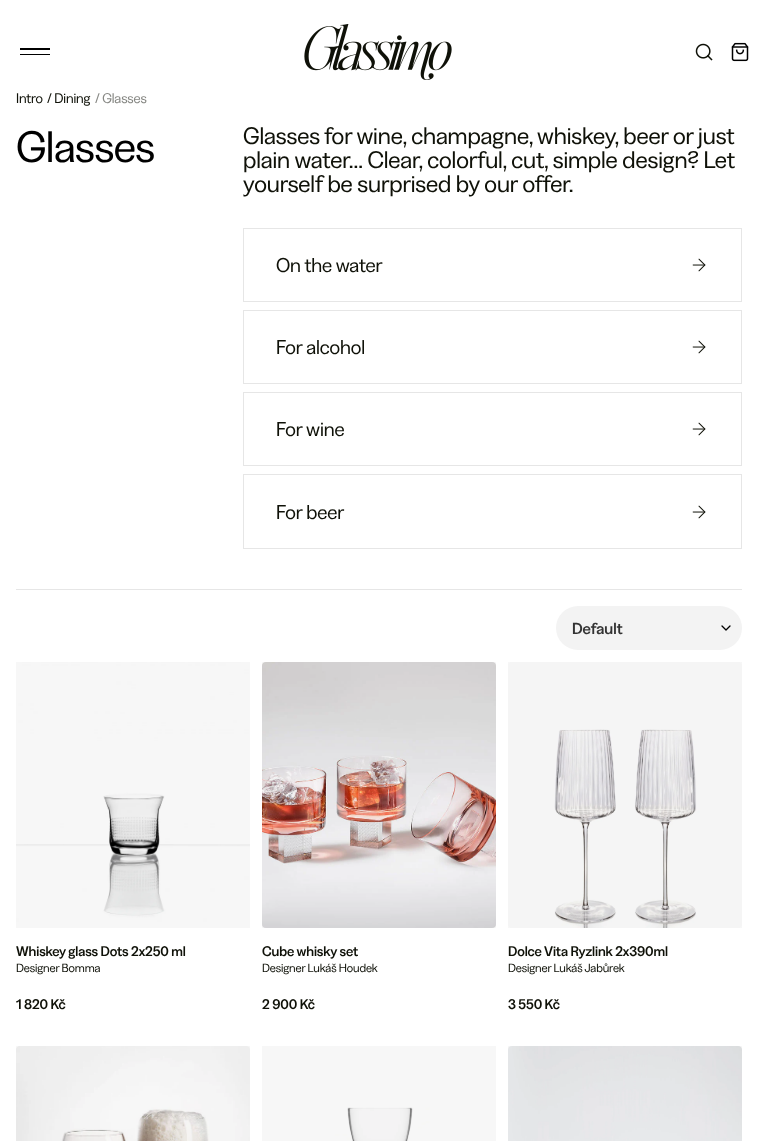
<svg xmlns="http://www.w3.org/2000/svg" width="758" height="1141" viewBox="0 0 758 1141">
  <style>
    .t1 { font: 14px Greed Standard; letter-spacing: -0.1px; fill: #0f1108; }
    .t2 { font: 14px Greed Standard; letter-spacing: -0.1px; fill: #878884; }
    .t3 { font: 44px Greed Standard; letter-spacing: -0.5px; fill: #000; }
    .t4 { font: 24px Greed Standard; letter-spacing: -0.1px; fill: #0f1108; }
    .t5 { font: 20px Greed Standard; letter-spacing: -0.1px; fill: #0f1108; }
    .t6 { font: 500 16px Greed Standard; fill: #333; }
    .t7 { font: 500 14px Greed Standard; letter-spacing: -0.1px; fill: #0f1108; }
    .t8 { font: 12px Greed Standard; letter-spacing: -0.1px; fill: #0f1108; }
  </style>
  <rect width="100%" height="100%" fill="#fff"/>
  <rect x="20" y="48" width="30" height="2" fill="#000"/>
  <rect x="20" y="54" width="30" height="1" fill="#000"/>
  <image x="304" y="24" width="148" height="56" href="images/1.png"/>
  <image x="695" y="43" width="18" height="18" href="images/2.png"/>
  <image x="731" y="42" width="18" height="20" href="images/3.png"/>
  <text x="16" y="103" class="t1">Intro</text>
  <text x="47" y="103" class="t1">/ Dining</text>
  <text x="95" y="103" class="t2">/ Glasses</text>
  <text x="16" y="162" class="t3">Glasses</text>
  <text x="243" y="144" class="t4">Glasses for wine, champagne, whiskey, beer or just</text>
  <text x="243" y="168" class="t4">plain water... Clear, colorful, cut, simple design? Let</text>
  <text x="243" y="192" class="t4">yourself be surprised by our offer.</text>
  <rect x="243.5" y="228.5" width="498" height="73" fill="none" stroke="#e6e6e6"/>
  <text x="276" y="272" class="t5">On the water</text>
  <image x="692" y="258" width="14" height="14" href="images/4.png"/>
  <rect x="243.5" y="310.5" width="498" height="73" fill="none" stroke="#e6e6e6"/>
  <text x="276" y="354" class="t5">For alcohol</text>
  <image x="692" y="340" width="14" height="14" href="images/4.png"/>
  <rect x="243.5" y="392.5" width="498" height="73" fill="none" stroke="#e6e6e6"/>
  <text x="276" y="436" class="t5">For wine</text>
  <image x="692" y="422" width="14" height="14" href="images/4.png"/>
  <rect x="243.5" y="474.5" width="498" height="74" fill="none" stroke="#e6e6e6"/>
  <text x="276" y="519" class="t5">For beer</text>
  <image x="692" y="505" width="14" height="14" href="images/4.png"/>
  <rect x="16" y="589" width="726" height="1" fill="#e6e6e6"/>
  <rect x="556" y="606" width="186" height="44" rx="22" fill="#f3f3f3"/>
  <path d="M722 626L726 630L730 626" fill="none" stroke="#000" stroke-width="1.3" stroke-linecap="round" stroke-linejoin="round"/>
  <text x="572" y="634" class="t6">Default</text>
  <image x="16" y="662" width="234" height="266" href="images/5.png"/>
  <rect x="16" y="662" width="234" height="266" fill="#00000008"/>
  <text x="16" y="956" class="t7">Whiskey glass Dots 2x250 ml</text>
  <text x="16" y="972" class="t8">Designer Bomma</text>
  <text x="16" y="1009" class="t7">1 820 Kč</text>
  <image x="262" y="662" width="234" height="266" href="images/6.png"/>
  <rect x="262" y="662" width="234" height="266" fill="#00000008"/>
  <text x="262" y="956" class="t7">Cube whisky set</text>
  <text x="262" y="972" class="t8">Designer Lukáš Houdek</text>
  <text x="262" y="1009" class="t7">2 900 Kč</text>
  <image x="508" y="662" width="234" height="266" href="images/7.png"/>
  <rect x="508" y="662" width="234" height="266" fill="#00000008"/>
  <text x="508" y="956" class="t7">Dolce Vita Ryzlink 2x390ml</text>
  <text x="508" y="972" class="t8">Designer Lukáš Jabůrek</text>
  <text x="508" y="1009" class="t7">3 550 Kč</text>
  <image x="16" y="1046" width="234" height="95" href="images/8.png"/>
  <rect x="16" y="1046" width="234" height="95" fill="#00000008"/>
  <image x="262" y="1046" width="234" height="95" href="images/9.png"/>
  <rect x="262" y="1046" width="234" height="95" fill="#00000008"/>
  <image x="508" y="1046" width="234" height="95" href="images/10.png"/>
  <rect x="508" y="1046" width="234" height="95" fill="#00000008"/>
</svg>
